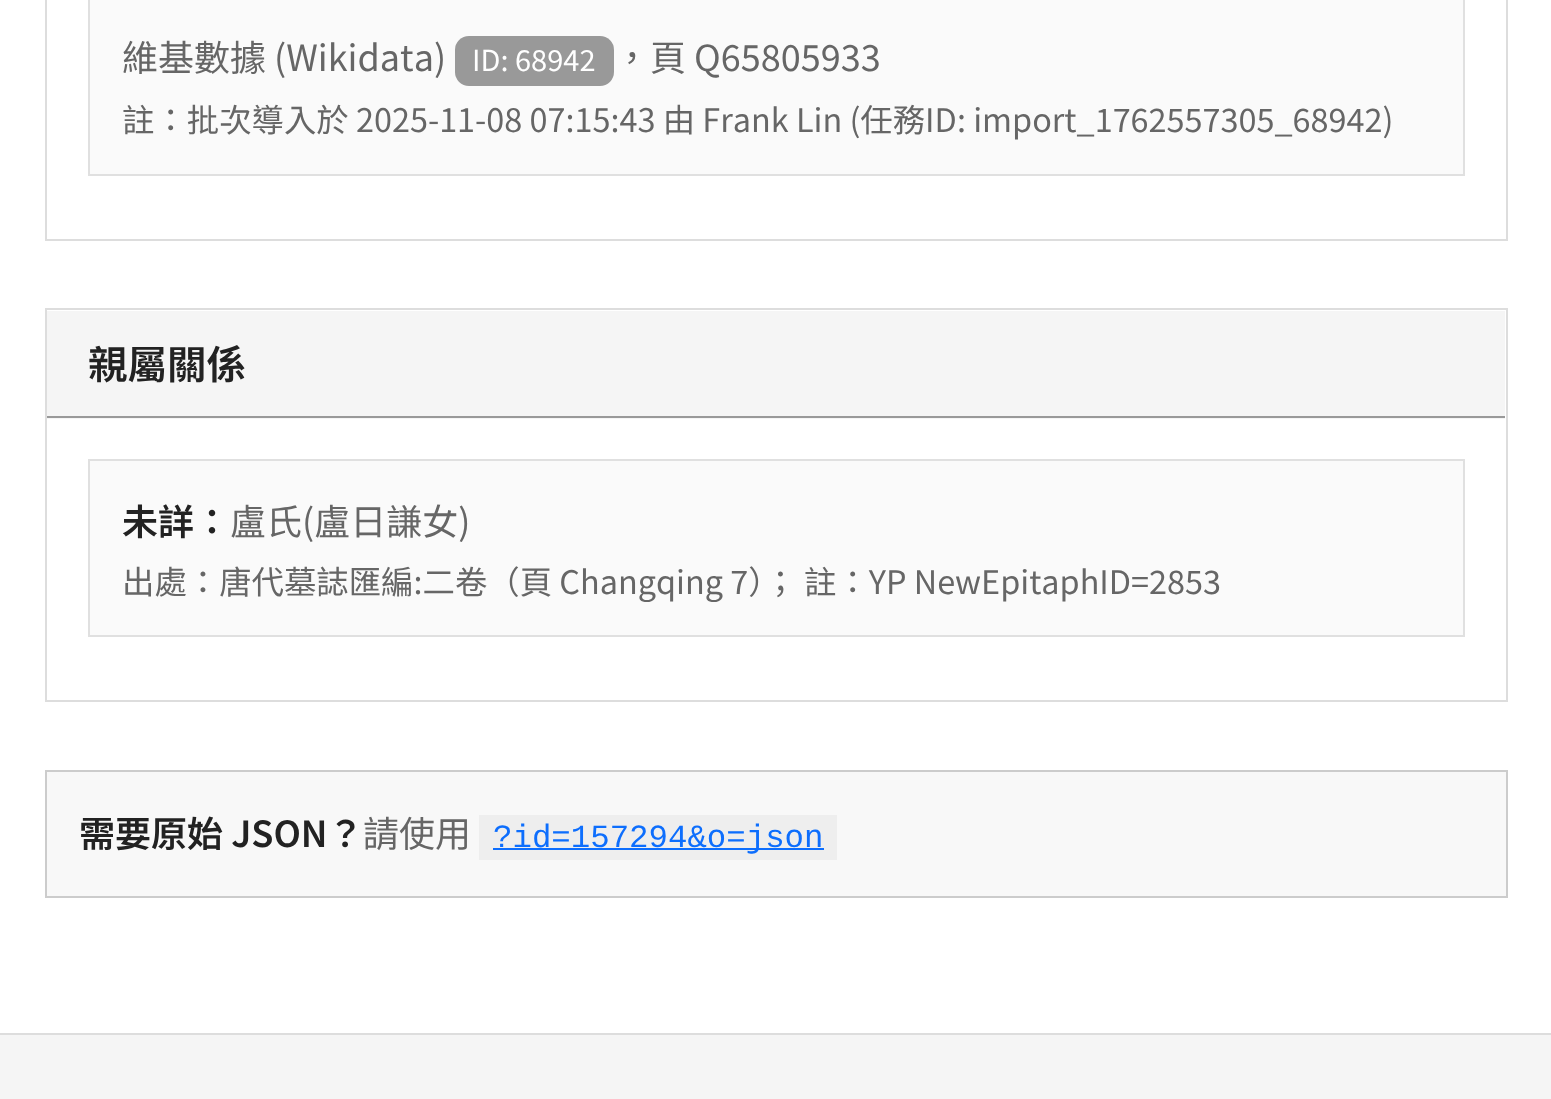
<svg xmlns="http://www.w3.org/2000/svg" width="1551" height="1099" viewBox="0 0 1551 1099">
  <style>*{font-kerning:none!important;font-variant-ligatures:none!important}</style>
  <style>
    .t1 { font: 36px Noto Sans TC; fill: #666; }
    .t2 { font: 29px Noto Sans TC; fill: #fff; }
    .t3 { font: 32.4px Noto Sans TC; fill: #666; }
    .t4 { font: 600 39.5px Noto Sans TC; fill: #222; }
    .t5 { font: 600 36px Noto Sans TC; fill: #222; }
    .t6 { font: 32.4px Liberation Mono; fill: #0d6efd; }
  </style>
  <rect width="100%" height="100%" fill="#fff"/>
  <rect x="46" y="-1" width="1461" height="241" fill="none" stroke="#ddd" stroke-width="2"/>
  <rect x="89" y="-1" width="1375" height="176" fill="#fafafa" stroke="#e0e0e0" stroke-width="2"/>
  <text x="122" y="71" class="t1">維基數據 (Wikidata)</text>
  <rect x="455" y="36" width="159" height="50" rx="14" fill="#999"/>
  <text x="472" y="71" class="t2">ID: 68942</text>
  <text x="614" y="71" class="t1">，頁 Q65805933</text>
  <text x="122" y="132" class="t3">註：批次導入於 2025-11-08 07:15:43 由 Frank Lin (任務ID: import_1762557305_68942)</text>
  <rect x="46" y="309" width="1461" height="392" fill="none" stroke="#ddd" stroke-width="2"/>
  <rect x="47" y="311" width="1458" height="108" fill="#f5f5f5"/>
  <rect x="47" y="416" width="1458" height="2" fill="#999"/>
  <text x="88" y="379" class="t4">親屬關係</text>
  <rect x="89" y="460" width="1375" height="176" fill="#fafafa" stroke="#e0e0e0" stroke-width="2"/>
  <text x="122" y="535" class="t5">未詳：</text>
  <text x="230" y="535" class="t1">盧氏(盧日謙女)</text>
  <text x="122" y="594" class="t3">出處：唐代墓誌匯編:二卷（頁 Changqing 7）； 註：YP NewEpitaphID=2853</text>
  <rect x="46" y="771" width="1461" height="126" fill="#f8f8f8" stroke="#ccc" stroke-width="2"/>
  <text x="79" y="847" class="t5">需要原始 JSON？</text>
  <text x="363" y="847" class="t1">請使用</text>
  <rect x="479" y="815" width="358" height="45" fill="#eee"/>
  <rect x="493" y="848" width="331" height="2" fill="#0d6efd"/>
  <text x="493" y="847" class="t6">?id=157294&amp;o=json</text>
  <rect x="0" y="1035" width="1551" height="64" fill="#f5f5f5"/>
  <rect x="0" y="1033" width="1551" height="2" fill="#ddd"/>
</svg>
